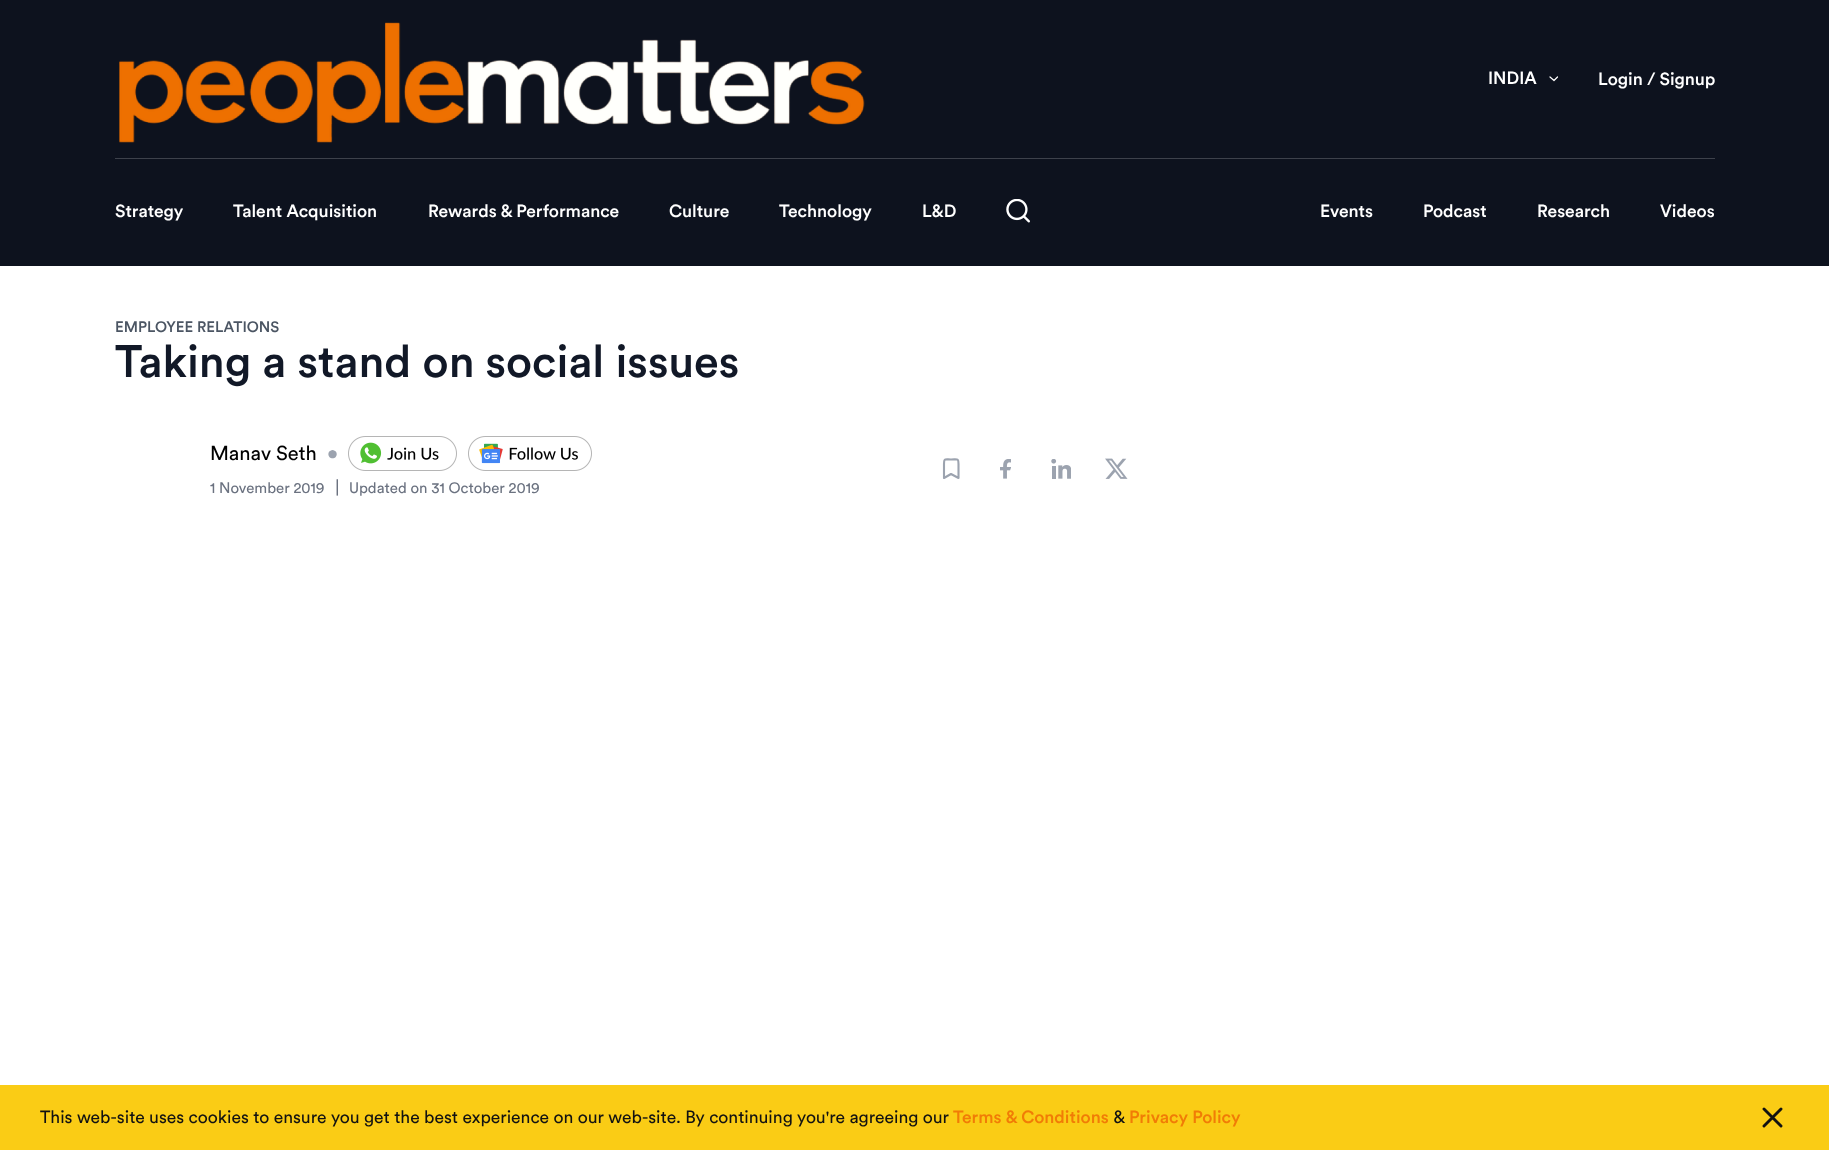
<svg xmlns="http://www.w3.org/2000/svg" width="1829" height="1150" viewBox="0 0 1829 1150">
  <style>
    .t1 { font: 500 17.5px Circular; fill: #fff; }
    .t2 { font: 500 15px Circular; fill: #4b5563; }
    .t3 { font: 500 45px Circular; fill: #111827; }
    .t4 { font: 20px Circular; fill: #000; }
    .t5 { font: 20px Circular; fill: #9ca3af; }
    .t6 { font: 15px Circular; fill: #6b7280; }
    .t7 { font: 17.5px Circular; fill: #6b7280; }
    .t8 { font: 17.5px Circular; fill: #121212; }
    .t9 { font: 500 17.5px Circular; fill: #f17c06; }
  </style>
  <rect width="100%" height="100%" fill="#fff"/>
  <rect x="0" y="0" width="1829" height="266" fill="#0d121e"/>
  <image x="119" y="22" width="746" height="121" href="images/1.png"/>
  <text x="1488" y="84" class="t1">INDIA</text>
  <path d="M1550 77L1554 80.5L1557.5 77" fill="none" stroke="#fff" stroke-width="1.2" stroke-linecap="round" stroke-linejoin="round"/>
  <text x="1598" y="85" class="t1">Login / Signup</text>
  <rect x="115" y="158" width="1600" height="1" fill="#3d414b"/>
  <text x="115" y="217" class="t1">Strategy</text>
  <text x="233" y="217" class="t1">Talent Acquisition</text>
  <text x="428" y="217" class="t1">Rewards &amp; Performance</text>
  <text x="669" y="217" class="t1">Culture</text>
  <text x="779" y="217" class="t1">Technology</text>
  <text x="922" y="217" class="t1">L&amp;D</text>
  <image x="1006" y="199" width="24" height="24" href="images/2.png"/>
  <text x="1320" y="217" class="t1">Events</text>
  <text x="1423" y="217" class="t1">Podcast</text>
  <text x="1537" y="217" class="t1">Research</text>
  <text x="1660" y="217" class="t1">Videos</text>
  <text x="115" y="332" class="t2">EMPLOYEE RELATIONS</text>
  <text x="115" y="377" class="t3">Taking a stand on social issues</text>
  <text x="210" y="460" class="t4">Manav Seth</text>
  <text x="327" y="460" class="t5">•</text>
  <image x="348" y="436" width="109" height="35" href="images/3.png"/>
  <image x="468" y="436" width="124" height="35" href="images/4.png"/>
  <text x="210" y="493" class="t6">1 November 2019</text>
  <text x="335" y="493" class="t7">|</text>
  <text x="349" y="493" class="t6">Updated on 31 October 2019</text>
  <path d="M958.5 478L951 474L944 478V464C944 458 945 459.5 951 459.5C957.5 459.5 958.5 458 958.5 464Z" fill="none" stroke="#9ca3af" stroke-width="2.1" stroke-linecap="round" stroke-linejoin="round"/>
  <image x="1000" y="459" width="11" height="20" href="images/5.png"/>
  <image x="1051" y="459" width="20" height="20" href="images/6.png"/>
  <image x="1105" y="458" width="23" height="21" href="images/7.png"/>
  <rect x="0" y="1085" width="1829" height="65" fill="#facc15"/>
  <text x="40" y="1123" class="t8">This web-site uses cookies to ensure you get the best experience on our web-site. By continuing you're agreeing our</text>
  <text x="953" y="1123" class="t9">Terms &amp; Conditions</text>
  <text x="1113" y="1123" class="t8">&amp;</text>
  <text x="1129" y="1123" class="t9">Privacy Policy</text>
  <path d="M1781 1109L1764 1126M1764 1109L1781 1126" fill="none" stroke="#121212" stroke-width="2.9" stroke-linecap="round" stroke-linejoin="round"/>
</svg>
